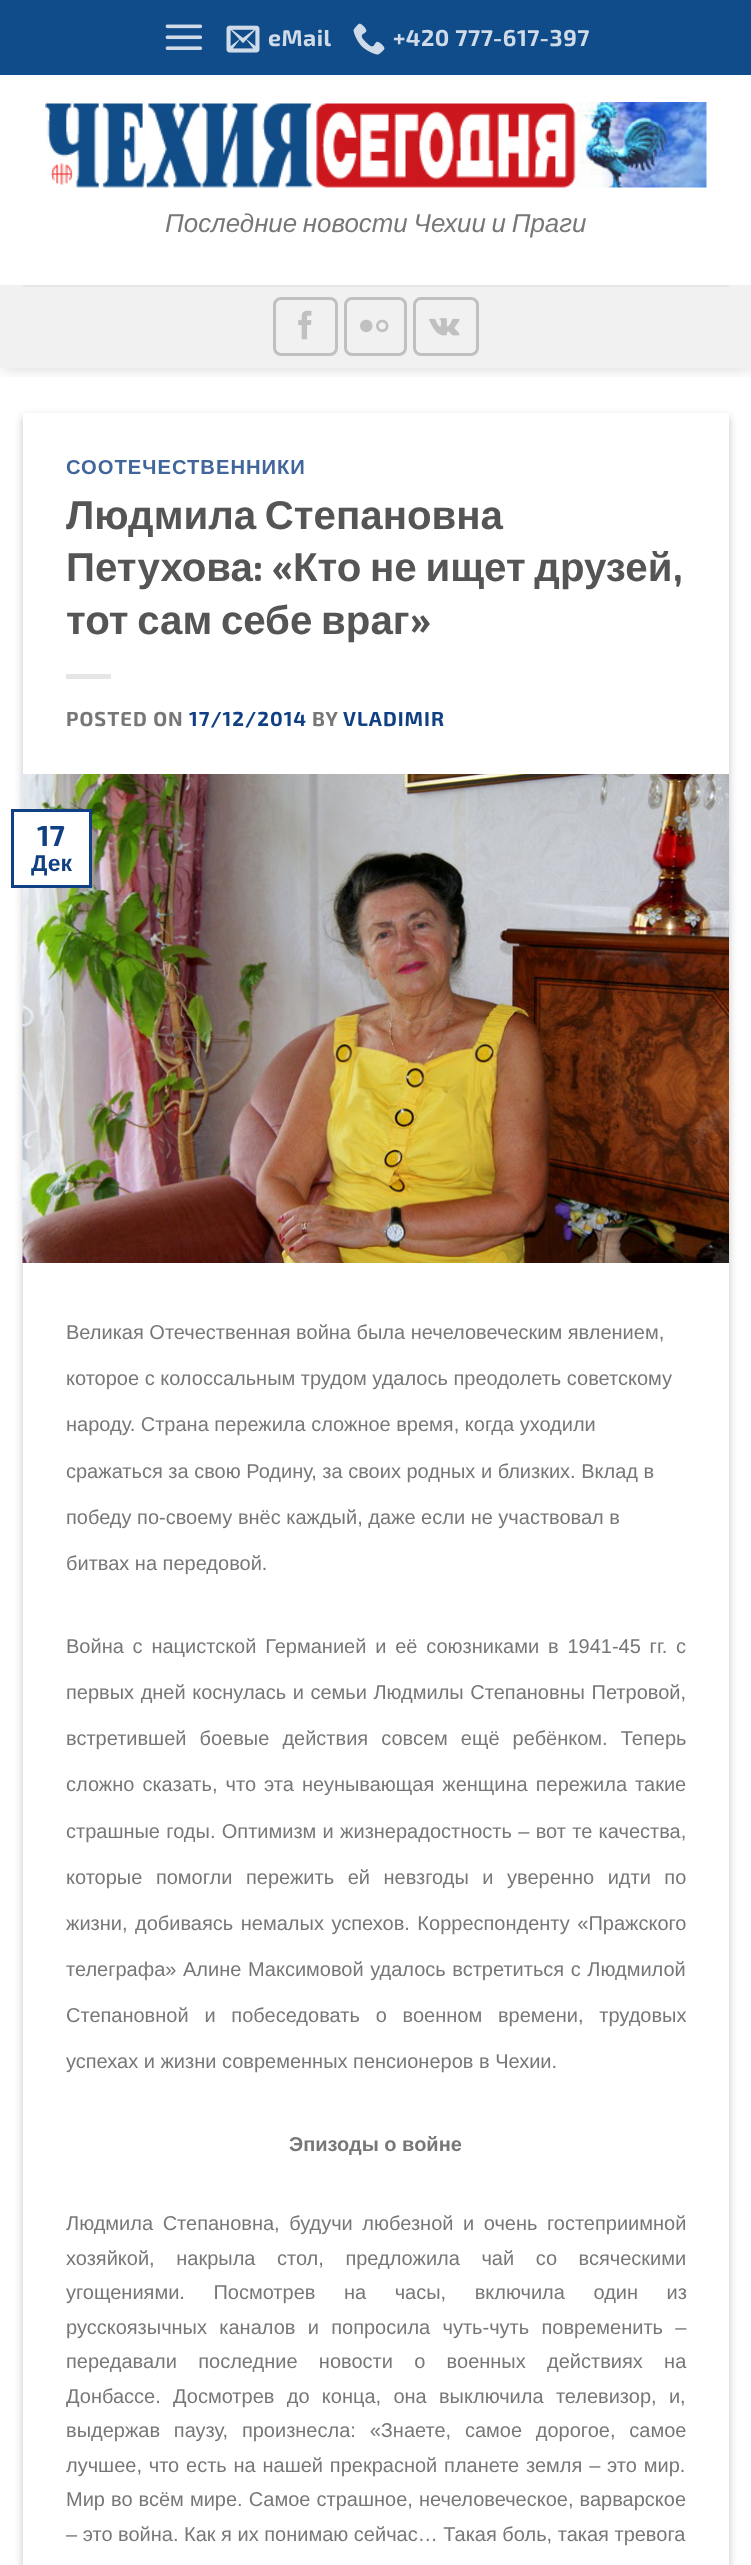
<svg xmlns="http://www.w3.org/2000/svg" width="751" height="2565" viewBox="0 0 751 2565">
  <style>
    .t1 { font: bold 23px 'Exo 2'; letter-spacing: 0.5px; fill: #cfdbe8; }
    .t2 { font: italic 25.9px Liberation Sans; fill: #777; }
    .t3 { font: bold 20.2px Liberation Sans; letter-spacing: 1px; fill: #40669c; }
    .t4 { font: bold 40.25px Liberation Sans; fill: #555; }
    .t5 { font: bold 40.25px 'Exo 2'; fill: #555; }
    .t6 { font: bold 20.2px 'Exo 2'; letter-spacing: 1px; fill: #777; }
    .t7 { font: bold 20.2px 'Exo 2'; letter-spacing: 1px; fill: #104083; }
    .t8 { font: bold 29px 'Exo 2'; fill: #104083; }
    .t9 { font: bold 23px Liberation Sans; fill: #104083; }
    .t10 { font: 20px Liberation Sans; fill: #777; }
    .t11 { font: bold 20px Liberation Sans; fill: #777; }
  </style>
  <defs>
    <clipPath id="clip1"><rect x="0" y="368" width="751" height="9"/></clipPath>
    <clipPath id="clip2"><path d="M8 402H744V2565H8ZM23 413H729V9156H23Z" clip-rule="evenodd"/></clipPath>
  </defs>
  <rect width="100%" height="100%" fill="#fff"/>
  <g clip-path="url(#clip1)">
    <rect x="2" y="2" width="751" height="367" fill="#00000026" filter="blur(7.5px)"/>
  </g>
  <rect x="0" y="0" width="751" height="75" fill="#104c8a"/>
  <image x="165" y="24" width="38" height="26" href="images/1.png"/>
  <image x="226" y="25" width="34" height="28" href="images/2.png"/>
  <text x="268" y="46" class="t1">eMail</text>
  <image x="353" y="23" width="32" height="32" href="images/3.png"/>
  <text x="393" y="46" class="t1">+420 777-617-397</text>
  <image x="45" y="102" width="662" height="86" href="images/4.png"/>
  <text x="165" y="232" word-spacing="-1.5" class="t2">Последние новости Чехии и Праги</text>
  <rect x="0" y="285" width="751" height="83" fill="#f1f1f1"/>
  <rect x="23" y="285" width="706" height="2" fill="#e5e5e5"/>
  <rect x="274.5" y="298.5" width="62" height="56" rx="6.5" fill="none" stroke="#c0c0c0" stroke-width="3"/>
  <image x="298" y="310" width="14" height="30" href="images/5.png"/>
  <rect x="345.5" y="298.5" width="60" height="56" rx="6.5" fill="none" stroke="#c0c0c0" stroke-width="3"/>
  <image x="360" y="319" width="29" height="14" href="images/6.png"/>
  <rect x="414.5" y="298.5" width="63" height="56" rx="6.5" fill="none" stroke="#c0c0c0" stroke-width="3"/>
  <image x="429" y="318" width="31" height="18" href="images/7.png"/>
  <g clip-path="url(#clip2)">
    <rect x="23" y="417" width="706" height="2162" fill="#0000003b" filter="blur(4.5px)"/>
  </g>
  <text x="66" y="474" class="t3">СООТЕЧЕСТВЕННИКИ</text>
  <text x="66" y="529" word-spacing="-2.5" class="t4">Людмила Степановна</text>
  <text x="66" y="581" class="t4">Петухова</text>
  <text x="253" y="581" class="t5">: «</text>
  <text x="293" y="581" word-spacing="-2.5" class="t4">Кто не ищет друзей</text>
  <text x="673" y="581" class="t5">,</text>
  <text x="66" y="634" word-spacing="-2.5" class="t4">тот сам себе враг</text>
  <text x="410" y="634" class="t5">»</text>
  <rect x="66" y="674" width="45" height="5" fill="#e6e6e6"/>
  <text x="66" y="726" class="t6">POSTED ON</text>
  <text x="189" y="726" class="t7">17/12/2014</text>
  <text x="312" y="726" class="t6">BY</text>
  <text x="343" y="726" class="t7">VLADIMIR</text>
  <image x="22" y="774" width="707" height="489" href="images/8.png"/>
  <rect x="15" y="812" width="74" height="73" fill="#fff"/>
  <rect x="12.5" y="810.5" width="78" height="76" fill="none" stroke="#104083" stroke-width="3"/>
  <text x="37" y="846" class="t8">17</text>
  <text x="31" y="871" class="t9">Дек</text>
  <text x="66" y="1339" class="t10">Великая Отечественная война была нечеловеческим явлением,</text>
  <text x="66" y="1385" class="t10">которое с колоссальным трудом удалось преодолеть советскому</text>
  <text x="66" y="1431" class="t10">народу. Страна пережила сложное время, когда уходили</text>
  <text x="66" y="1478" class="t10">сражаться за свою Родину, за своих родных и близких. Вклад в</text>
  <text x="66" y="1524" class="t10">победу по-своему внёс каждый, даже если не участвовал в</text>
  <text x="66" y="1570" class="t10">битвах на передовой.</text>
  <text x="66" y="1653" word-spacing="3.25" class="t10">Война с нацистской Германией и её союзниками в 1941-45 гг. с</text>
  <text x="66" y="1699" word-spacing="1" class="t10">первых дней коснулась и семьи Людмилы Степановны Петровой,</text>
  <text x="66" y="1745" word-spacing="7.5" class="t10">встретившей боевые действия совсем ещё ребёнком. Теперь</text>
  <text x="66" y="1791" word-spacing="2.5" class="t10">сложно сказать, что эта неунывающая женщина пережила такие</text>
  <text x="66" y="1838" word-spacing="0.75" class="t10">страшные годы. Оптимизм и жизнерадостность – вот те качества,</text>
  <text x="66" y="1884" word-spacing="8" class="t10">которые помогли пережить ей невзгоды и уверенно идти по</text>
  <text x="66" y="1930" word-spacing="2" class="t10">жизни, добиваясь немалых успехов. Корреспонденту «Пражского</text>
  <text x="66" y="1976" word-spacing="1" class="t10">телеграфа» Алине Максимовой удалось встретиться с Людмилой</text>
  <text x="66" y="2022" word-spacing="10.25" class="t10">Степановной и побеседовать о военном времени, трудовых</text>
  <text x="66" y="2068" class="t10">успехах и жизни современных пенсионеров в Чехии.</text>
  <text x="289" y="2151" class="t11">Эпизоды о войне</text>
  <text x="66" y="2230" word-spacing="4" class="t10">Людмила Степановна, будучи любезной и очень гостеприимной</text>
  <text x="66" y="2265" word-spacing="16" class="t10">хозяйкой, накрыла стол, предложила чай со всяческими</text>
  <text x="66" y="2299" word-spacing="23" class="t10">угощениями. Посмотрев на часы, включила один из</text>
  <text x="66" y="2334" word-spacing="6.75" class="t10">русскоязычных каналов и попросила чуть-чуть повременить –</text>
  <text x="66" y="2368" word-spacing="15.75" class="t10">передавали последние новости о военных действиях на</text>
  <text x="66" y="2403" word-spacing="6.75" class="t10">Донбассе. Досмотрев до конца, она выключила телевизор, и,</text>
  <text x="66" y="2437" word-spacing="8.25" class="t10">выдержав паузу, произнесла: «Знаете, самое дорогое, самое</text>
  <text x="66" y="2472" word-spacing="1.25" class="t10">лучшее, что есть на нашей прекрасной планете земля – это мир.</text>
  <text x="66" y="2506" word-spacing="0.5" class="t10">Мир во всём мире. Самое страшное, нечеловеческое, варварское</text>
  <text x="66" y="2541" class="t10">– это война. Как я их понимаю сейчас… Такая боль, такая тревога</text>
</svg>
